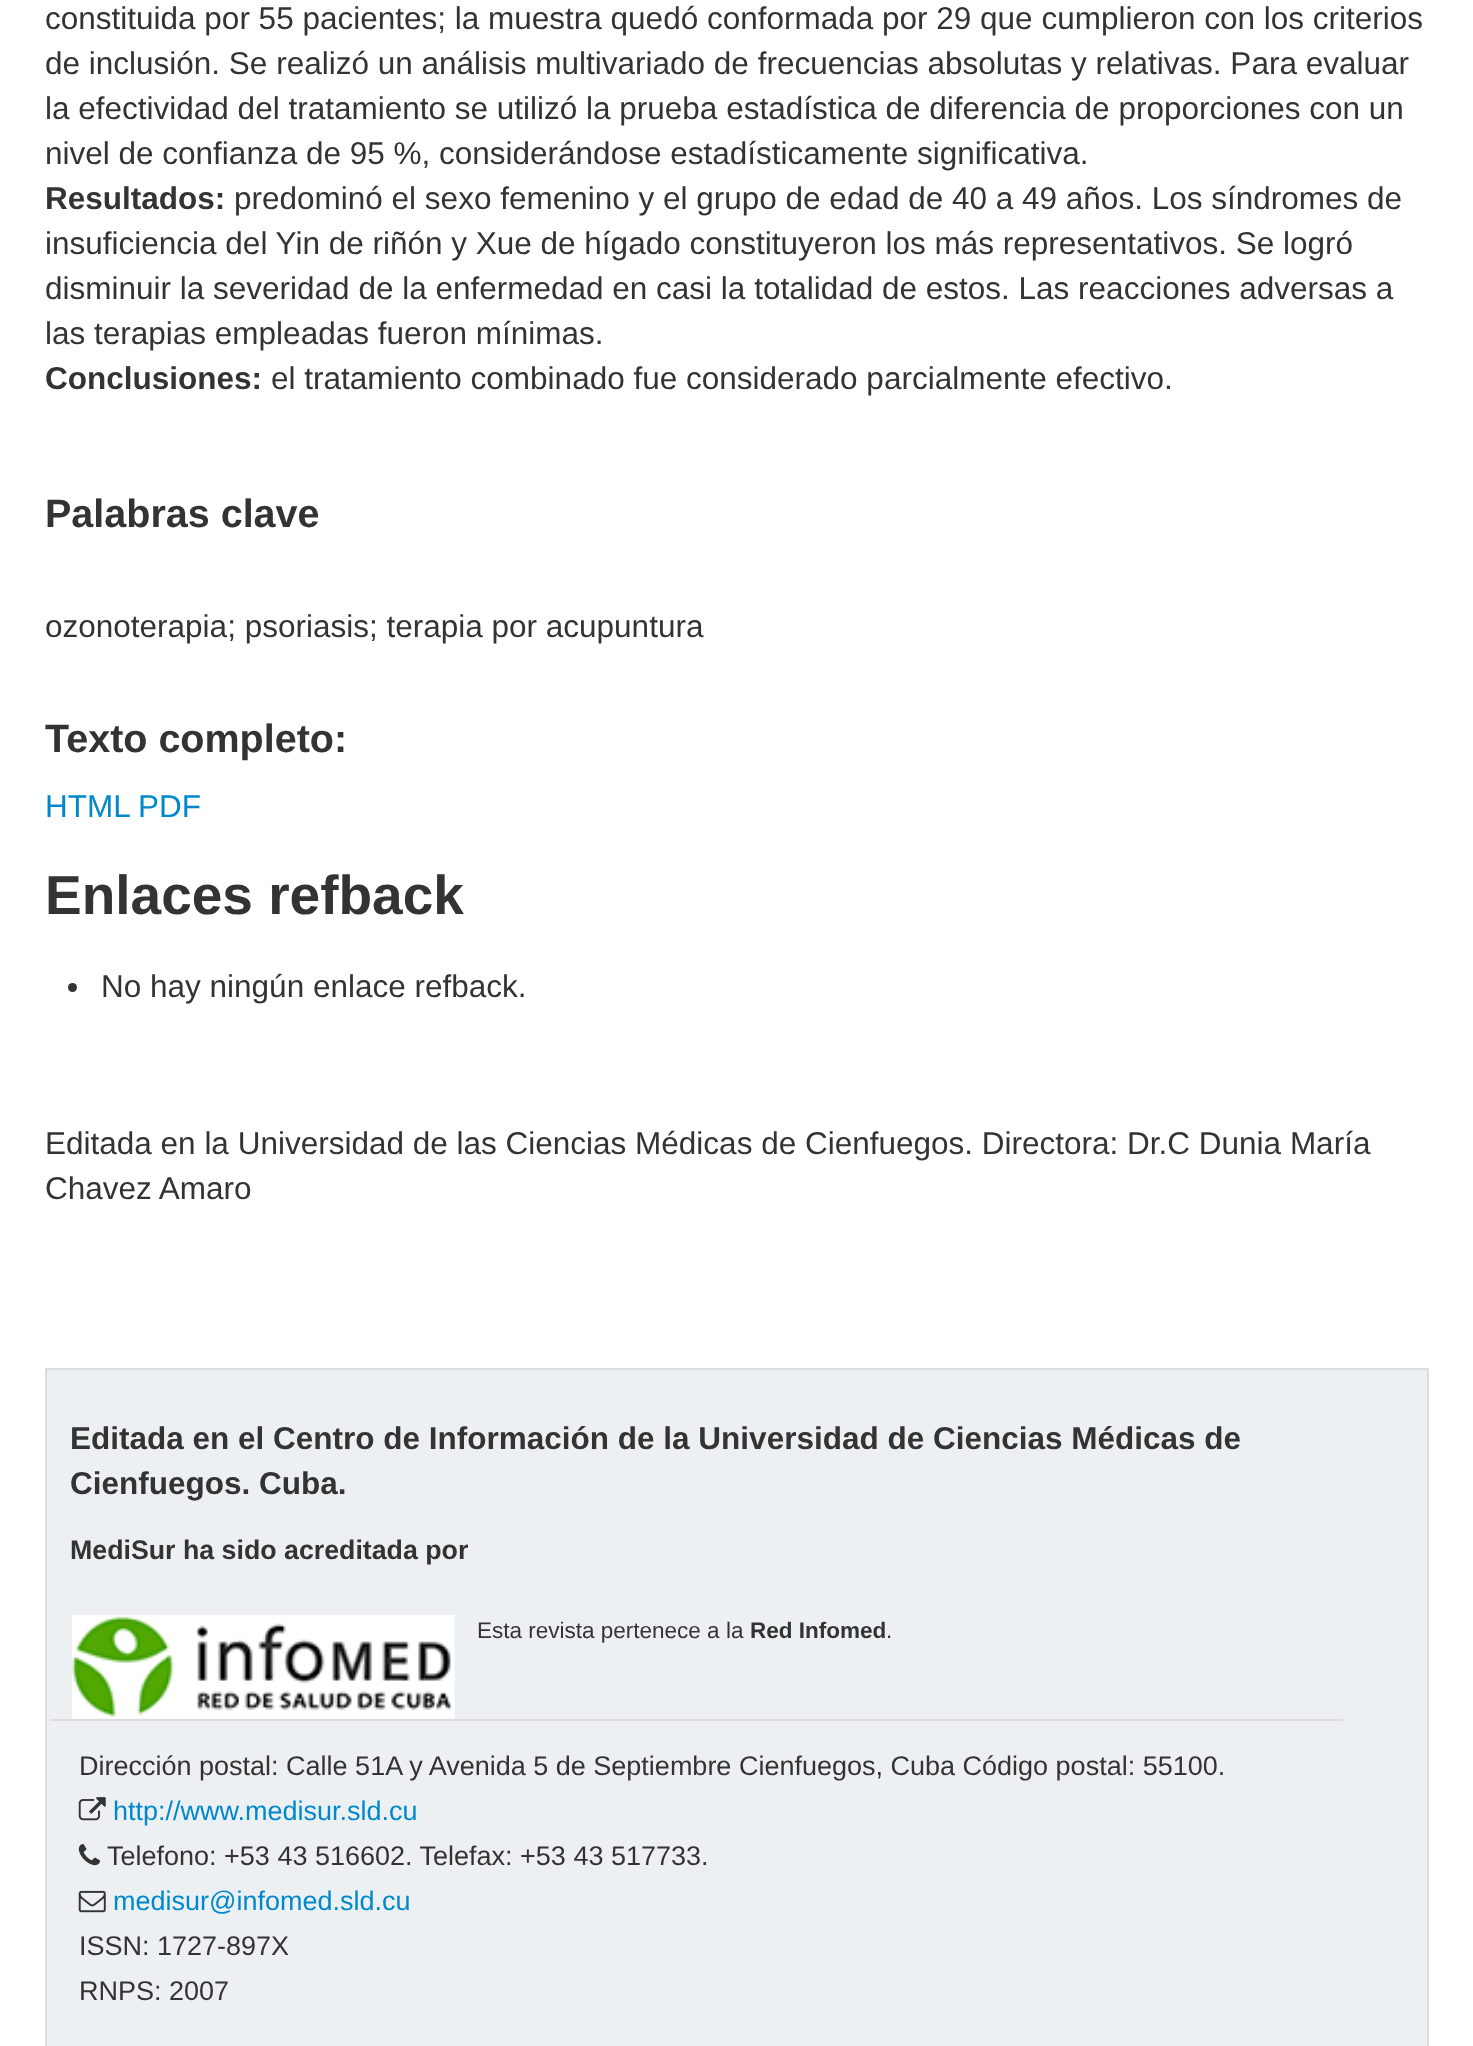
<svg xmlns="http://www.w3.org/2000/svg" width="1473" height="2046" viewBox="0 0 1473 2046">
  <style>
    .t1 { font: 31.5px Liberation Sans; fill: #333; }
    .t2 { font: bold 31.5px Liberation Sans; fill: #333; }
    .t3 { font: bold 39.5px Liberation Sans; fill: #333; }
    .t4 { font: 31.5px Liberation Sans; fill: #08c; }
    .t5 { font: bold 55px Liberation Sans; fill: #333; }
    .t6 { font: bold 26.75px Liberation Sans; fill: #333; }
    .t7 { font: 22.5px Liberation Sans; fill: #333; }
    .t8 { font: bold 22.5px Liberation Sans; fill: #333; }
    .t9 { font: 27px Liberation Sans; fill: #333; }
    .t10 { font: 27px Liberation Sans; fill: #08c; }
  </style>
  <rect width="100%" height="100%" fill="#fff"/>
  <text x="45" y="29" class="t1">constituida por 55 pacientes; la muestra quedó conformada por 29 que cumplieron con los criterios</text>
  <text x="45" y="74" class="t1">de inclusión. Se realizó un análisis multivariado de frecuencias absolutas y relativas. Para evaluar</text>
  <text x="45" y="119" class="t1">la efectividad del tratamiento se utilizó la prueba estadística de diferencia de proporciones con un</text>
  <text x="45" y="164" class="t1">nivel de confianza de 95 %, considerándose estadísticamente significativa.</text>
  <text x="45" y="209" class="t2">Resultados:</text>
  <text x="234" y="209" class="t1">predominó el sexo femenino y el grupo de edad de 40 a 49 años. Los síndromes de</text>
  <text x="45" y="254" class="t1">insuficiencia del Yin de riñón y Xue de hígado constituyeron los más representativos. Se logró</text>
  <text x="45" y="299" class="t1">disminuir la severidad de la enfermedad en casi la totalidad de estos. Las reacciones adversas a</text>
  <text x="45" y="344" class="t1">las terapias empleadas fueron mínimas.</text>
  <text x="45" y="389" class="t2">Conclusiones:</text>
  <text x="271" y="389" class="t1">el tratamiento combinado fue considerado parcialmente efectivo.</text>
  <text x="45" y="527" class="t3">Palabras clave</text>
  <text x="45" y="637" class="t1">ozonoterapia; psoriasis; terapia por acupuntura</text>
  <text x="45" y="752" class="t3">Texto completo:</text>
  <text x="45" y="817" class="t4">HTML</text>
  <text x="138" y="817" class="t4">PDF</text>
  <text x="45" y="914" class="t5">Enlaces refback</text>
  <circle cx="72.5" cy="987.5" r="4.5" fill="#333"/>
  <text x="101" y="997" class="t1">No hay ningún enlace refback.</text>
  <text x="45" y="1154" class="t1">Editada en la Universidad de las Ciencias Médicas de Cienfuegos. Directora: Dr.C Dunia María</text>
  <text x="45" y="1199" class="t1">Chavez Amaro</text>
  <rect x="46" y="1369" width="1382" height="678" fill="#edf0f2" stroke="#ddd" stroke-width="2"/>
  <rect x="50" y="1719" width="1293" height="2" fill="#ddd"/>
  <text x="70" y="1449" class="t2">Editada en el Centro de Información de la Universidad de Ciencias Médicas de</text>
  <text x="70" y="1494" class="t2">Cienfuegos. Cuba.</text>
  <text x="70" y="1559" class="t6">MediSur ha sido acreditada por</text>
  <image x="72" y="1615" width="383" height="104" href="images/1.png"/>
  <text x="477" y="1638" class="t7">Esta revista pertenece a la</text>
  <text x="750" y="1638" class="t8">Red Infomed</text>
  <text x="886" y="1638" class="t7">.</text>
  <text x="79" y="1775" class="t9">Dirección postal: Calle 51A y Avenida 5 de Septiembre Cienfuegos, Cuba Código postal: 55100.</text>
  <image x="78" y="1797" width="28" height="24" href="images/2.png"/>
  <text x="113" y="1820" class="t10">http://www.medisur.sld.cu</text>
  <image x="78" y="1844" width="22" height="22" href="images/3.png"/>
  <text x="107" y="1865" class="t9">Telefono: +53 43 516602. Telefax: +53 43 517733.</text>
  <image x="78" y="1890" width="28" height="23" href="images/4.png"/>
  <text x="113" y="1910" class="t10">medisur@infomed.sld.cu</text>
  <text x="79" y="1955" class="t9">ISSN: 1727-897X</text>
  <text x="79" y="2000" class="t9">RNPS: 2007</text>
</svg>
